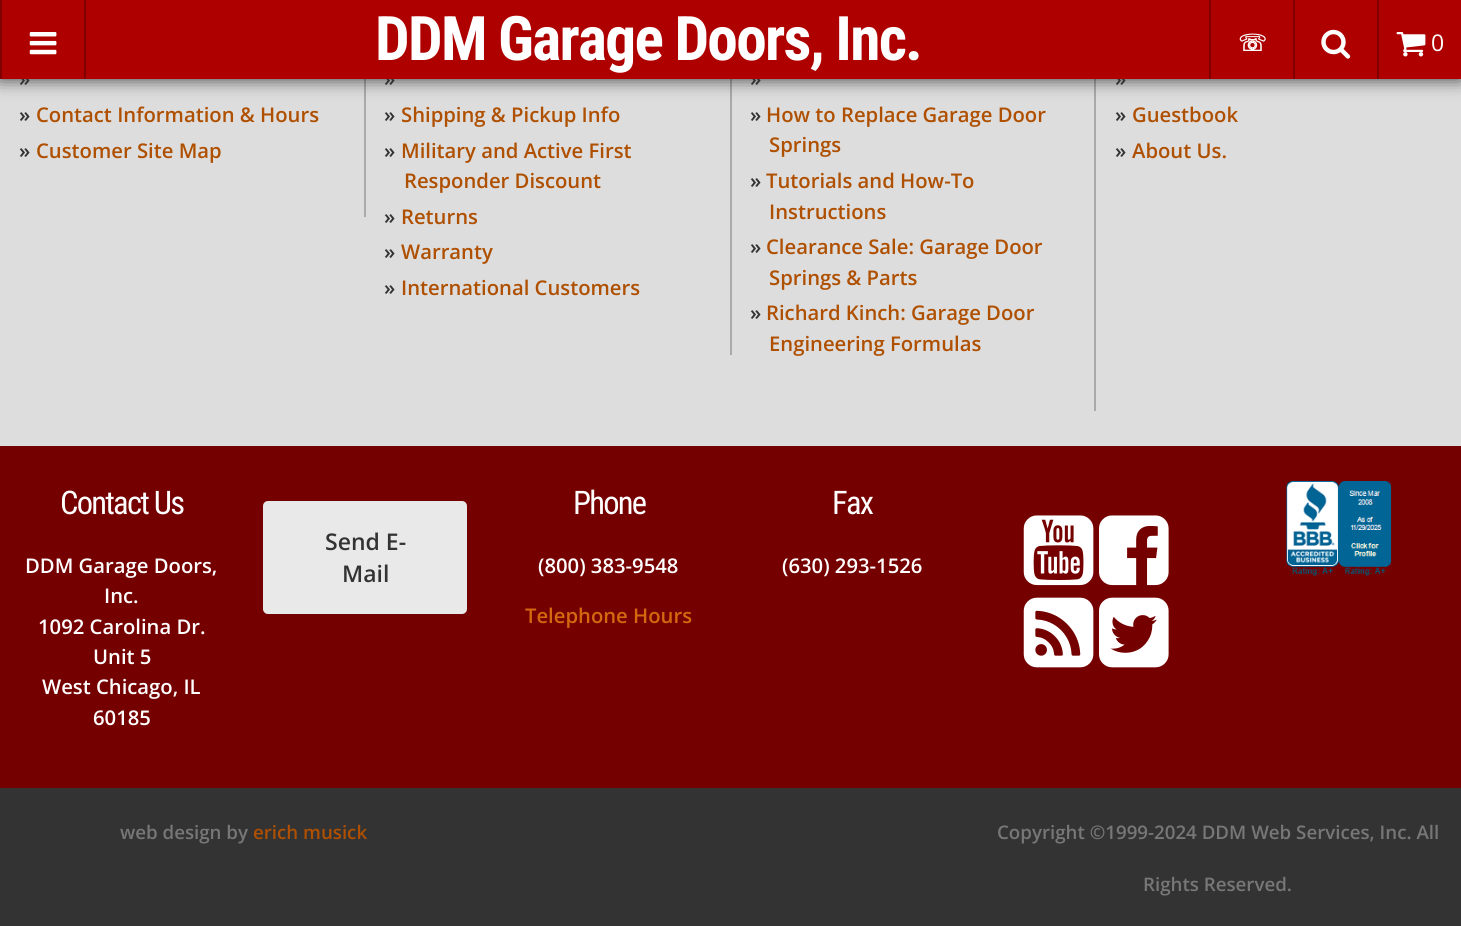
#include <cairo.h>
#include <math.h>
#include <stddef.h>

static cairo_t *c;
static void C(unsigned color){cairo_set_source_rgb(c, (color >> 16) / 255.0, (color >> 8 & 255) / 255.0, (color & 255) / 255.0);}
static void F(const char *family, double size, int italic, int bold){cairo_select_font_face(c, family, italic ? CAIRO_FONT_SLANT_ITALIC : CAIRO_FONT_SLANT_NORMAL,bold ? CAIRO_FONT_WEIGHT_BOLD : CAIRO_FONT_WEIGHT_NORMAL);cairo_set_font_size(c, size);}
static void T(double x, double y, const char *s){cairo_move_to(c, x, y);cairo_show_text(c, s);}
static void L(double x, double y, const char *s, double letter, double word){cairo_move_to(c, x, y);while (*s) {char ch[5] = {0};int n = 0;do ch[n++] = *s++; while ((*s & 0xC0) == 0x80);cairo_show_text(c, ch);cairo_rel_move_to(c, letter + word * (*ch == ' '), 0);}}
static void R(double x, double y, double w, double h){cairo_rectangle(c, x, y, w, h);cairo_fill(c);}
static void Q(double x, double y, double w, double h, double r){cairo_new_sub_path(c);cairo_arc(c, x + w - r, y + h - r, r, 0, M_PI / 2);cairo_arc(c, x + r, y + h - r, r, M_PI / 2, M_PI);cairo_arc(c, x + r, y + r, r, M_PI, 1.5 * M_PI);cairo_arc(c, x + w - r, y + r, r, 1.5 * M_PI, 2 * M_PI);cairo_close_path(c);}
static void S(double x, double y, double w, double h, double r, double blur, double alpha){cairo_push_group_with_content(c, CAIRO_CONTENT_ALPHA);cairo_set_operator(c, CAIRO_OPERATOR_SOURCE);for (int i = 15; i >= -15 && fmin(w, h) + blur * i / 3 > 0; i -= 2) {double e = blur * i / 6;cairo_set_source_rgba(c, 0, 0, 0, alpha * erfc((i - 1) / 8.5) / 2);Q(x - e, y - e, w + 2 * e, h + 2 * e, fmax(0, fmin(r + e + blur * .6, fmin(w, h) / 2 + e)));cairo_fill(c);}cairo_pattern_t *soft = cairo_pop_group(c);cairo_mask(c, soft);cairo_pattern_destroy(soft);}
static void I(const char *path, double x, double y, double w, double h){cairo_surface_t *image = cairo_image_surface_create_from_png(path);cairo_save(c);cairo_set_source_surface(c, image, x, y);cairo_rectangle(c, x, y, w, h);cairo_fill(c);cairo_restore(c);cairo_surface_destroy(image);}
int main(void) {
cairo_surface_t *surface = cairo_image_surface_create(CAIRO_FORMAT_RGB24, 1461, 926);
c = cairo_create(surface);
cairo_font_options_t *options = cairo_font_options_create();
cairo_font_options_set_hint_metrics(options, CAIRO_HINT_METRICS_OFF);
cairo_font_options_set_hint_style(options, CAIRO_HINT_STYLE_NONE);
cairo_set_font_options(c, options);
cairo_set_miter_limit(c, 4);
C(0xdddddd);
cairo_paint(c);
C(0xaaaaaa);
R(364,79,2,138);
R(730,79,2,276);
R(1094,79,2,332);
C(0x000000);
S(0,0,1461,79,0,9,.75);
F("Open Sans SemiBold",20.25,0,0);
C(0x333333);
T(19,86,"»");
T(384,86,"»");
T(750,86,"»");
T(1115,86,"»");
C(0xaf0000);
R(2,0,1459,79);
C(0x800000);
R(0,0,2,79);
I("1.png",29,32,28,23);
R(84,0,2,79);
F("Roboto Condensed",61.4,0,1);
C(0xffffff);
L(375,60,"DDM Garage Doors, Inc.",-1.75,0);
C(0x800000);
R(1209,0,2,79);
F("DejaVu Sans",23,0,1);
C(0xffffff);
T(1238,51,"☏");
C(0x800000);
R(1293,0,2,79);
I("2.png",1321,29,30,30);
R(1377,0,2,79);
I("3.png",1396,32,30,25);
F("Open Sans",23,0,0);
C(0xffffff);
T(1431,51,"0");
F("Open Sans SemiBold",20.25,0,0);
C(0x333333);
T(19,122,"»");
C(0xaf4f00);
T(36,122,"Contact Information & Hours");
C(0x333333);
T(19,158,"»");
C(0xaf4f00);
T(36,158,"Customer Site Map");
C(0x333333);
T(384,122,"»");
C(0xaf4f00);
T(401,122,"Shipping & Pickup Info");
C(0x333333);
T(384,158,"»");
C(0xaf4f00);
T(401,158,"Military and Active First");
T(404,188,"Responder Discount");
C(0x333333);
T(384,224,"»");
C(0xaf4f00);
T(401,224,"Returns");
C(0x333333);
T(384,259,"»");
C(0xaf4f00);
T(401,259,"Warranty");
C(0x333333);
T(384,295,"»");
C(0xaf4f00);
T(401,295,"International Customers");
C(0x333333);
T(750,122,"»");
C(0xaf4f00);
T(766,122,"How to Replace Garage Door");
T(769,152,"Springs");
C(0x333333);
T(750,188,"»");
C(0xaf4f00);
T(766,188,"Tutorials and How-To");
T(769,219,"Instructions");
C(0x333333);
T(750,254,"»");
C(0xaf4f00);
T(766,254,"Clearance Sale: Garage Door");
T(769,285,"Springs & Parts");
C(0x333333);
T(750,320,"»");
C(0xaf4f00);
T(766,320,"Richard Kinch: Garage Door");
T(769,351,"Engineering Formulas");
C(0x333333);
T(1115,122,"»");
C(0xaf4f00);
T(1132,122,"Guestbook");
C(0x333333);
T(1115,158,"»");
C(0xaf4f00);
T(1132,158,"About Us.");
C(0x750000);
R(0,446,1461,342);
F("Roboto Condensed",32.5,0,0);
C(0xffffff);
L(60,514,"Contact Us",-1.75,0);
F("Open Sans SemiBold",20.25,0,0);
T(25,573,"DDM Garage Doors,");
T(104,603,"Inc.");
T(38,634,"1092 Carolina Dr.");
T(93,664,"Unit 5");
T(42,694,"West Chicago, IL");
T(93,725,"60185");
C(0xe9e9e9);
Q(263,501,204,113,5);
cairo_fill(c);
F("Open Sans SemiBold",23,0,0);
C(0x333333);
T(325,550,"Send E-");
T(342,582,"Mail");
F("Roboto Condensed",32.5,0,0);
C(0xffffff);
L(573,514,"Phone",-1.75,0);
F("Open Sans SemiBold",20.25,0,0);
T(538,573,"(800) 383-9548");
C(0xd4680f);
T(525,623,"Telephone Hours");
F("Roboto Condensed",32.5,0,0);
C(0xffffff);
L(832,514,"Fax",-1.75,0);
F("Open Sans SemiBold",20.25,0,0);
T(782,573,"(630) 293-1526");
I("4.png",1023,515,71,71);
I("5.png",1099,515,70,71);
I("6.png",1023,597,71,71);
I("7.png",1099,597,70,71);
I("8.png",1286,481,106,95);
C(0x333333);
R(0,788,1461,138);
F("Open Sans SemiBold",18.7,0,0);
C(0x777777);
T(120,839,"web design by");
C(0xaf4f00);
T(253,839,"erich musick");
C(0x777777);
T(997,839,"Copyright ©1999-2024 DDM Web Services, Inc. All");
T(1143,891,"Rights Reserved.");
cairo_surface_write_to_png(surface, "o.png");
cairo_font_options_destroy(options);
cairo_destroy(c);
cairo_surface_destroy(surface);
return 0;
}
